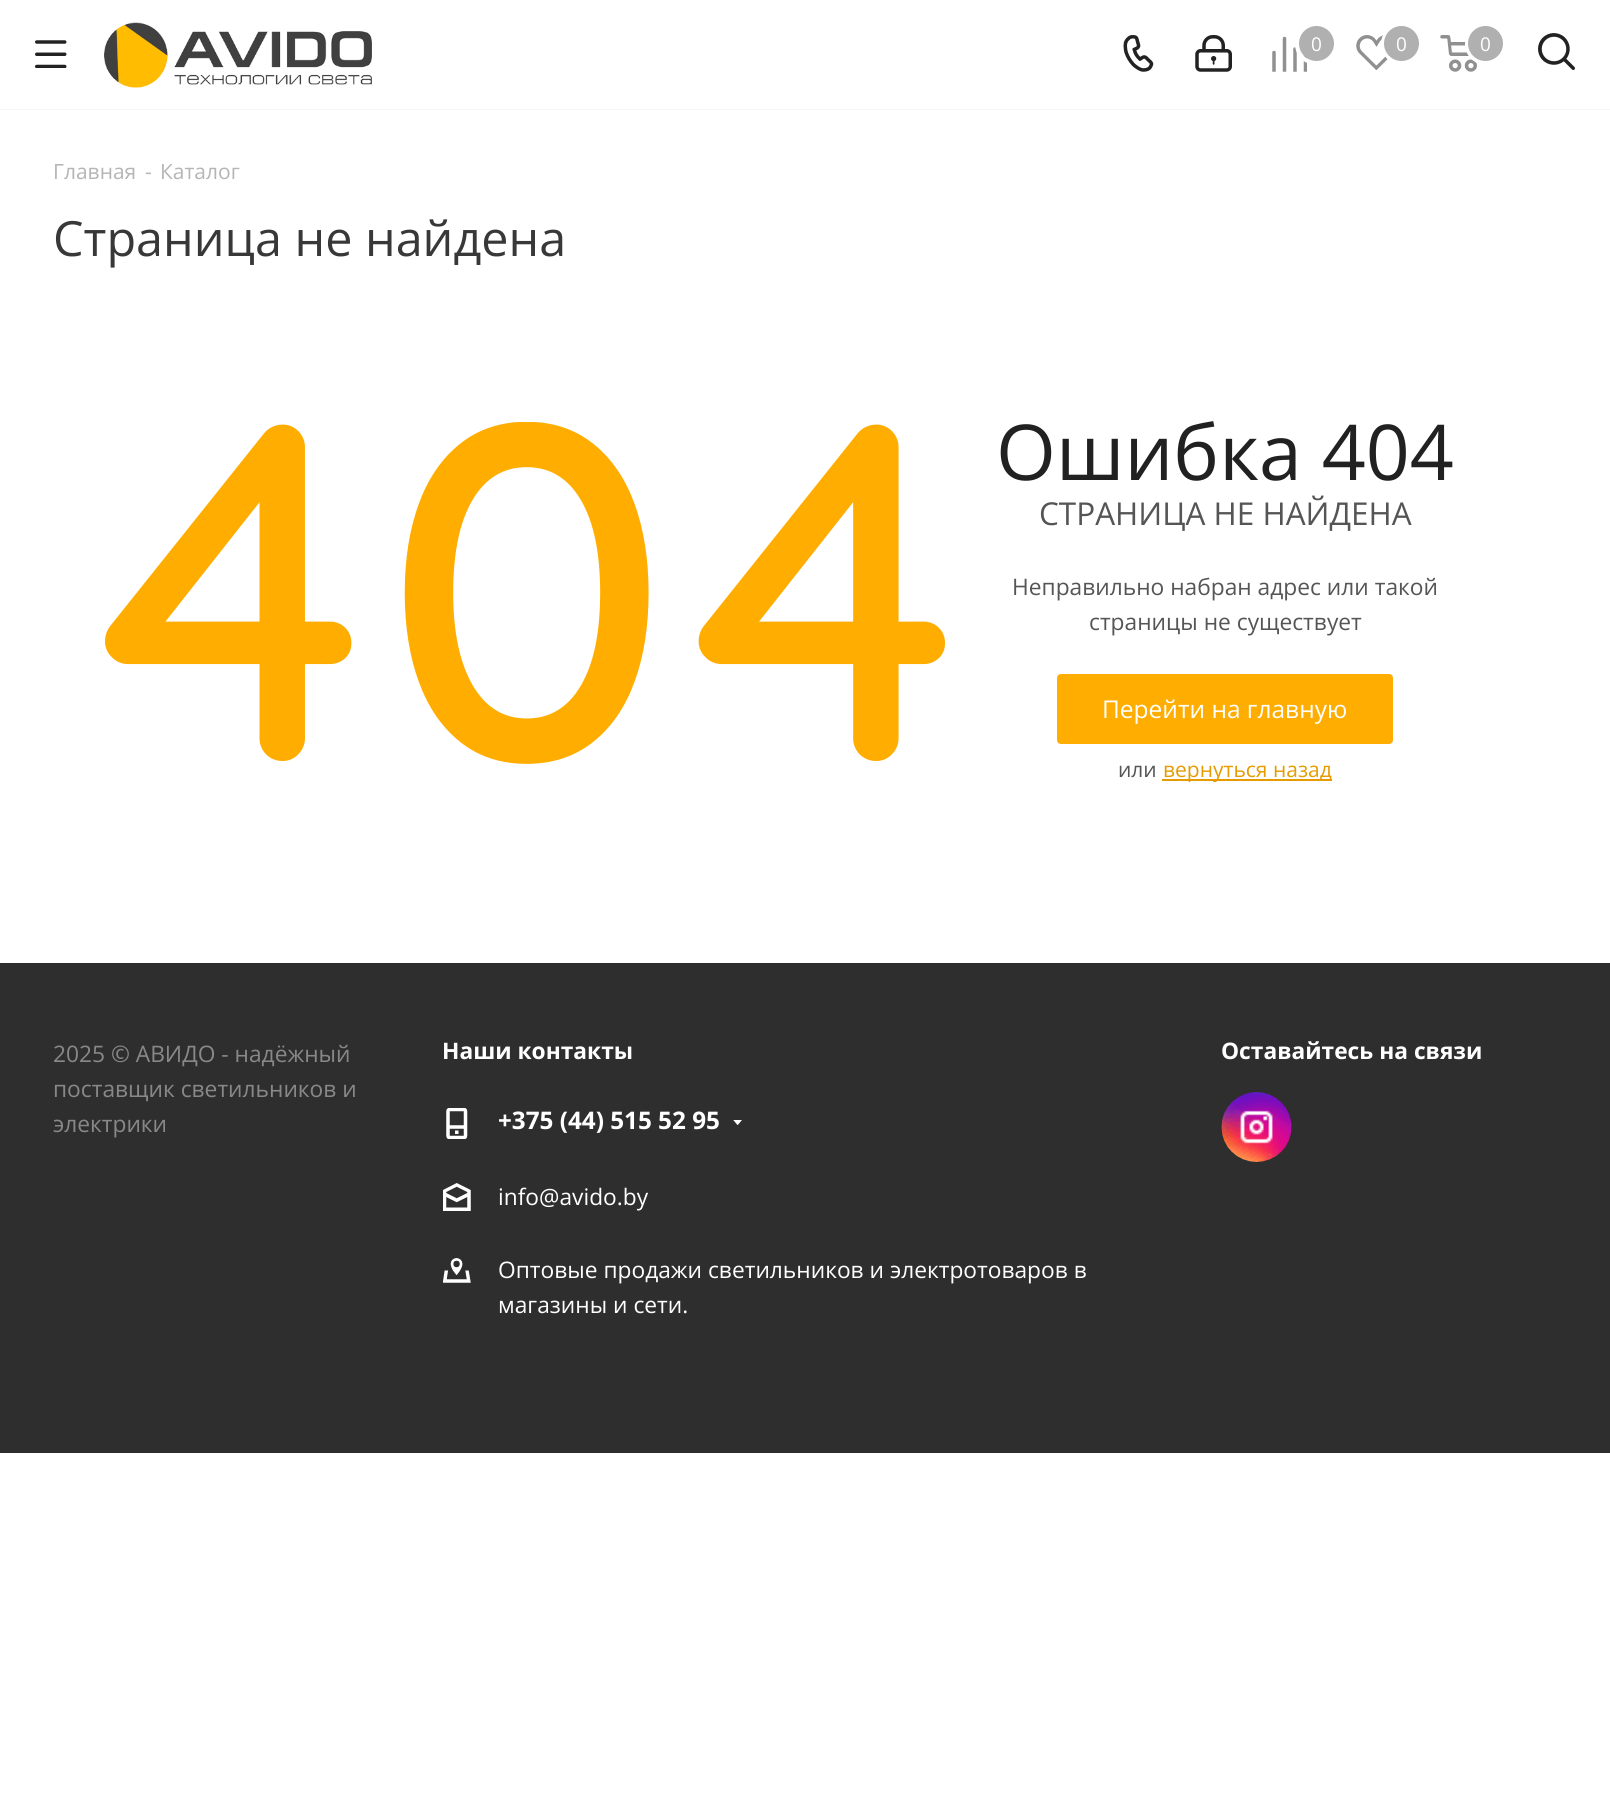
#include <cairo.h>
#include <math.h>
#include <stddef.h>

static cairo_t *c;
static void C(unsigned color){cairo_set_source_rgb(c, (color >> 16) / 255.0, (color >> 8 & 255) / 255.0, (color & 255) / 255.0);}
static void F(const char *family, double size, int italic, int bold){cairo_select_font_face(c, family, italic ? CAIRO_FONT_SLANT_ITALIC : CAIRO_FONT_SLANT_NORMAL,bold ? CAIRO_FONT_WEIGHT_BOLD : CAIRO_FONT_WEIGHT_NORMAL);cairo_set_font_size(c, size);}
static void T(double x, double y, const char *s){cairo_move_to(c, x, y);cairo_show_text(c, s);}
static void R(double x, double y, double w, double h){cairo_rectangle(c, x, y, w, h);cairo_fill(c);}
static void Q(double x, double y, double w, double h, double r){cairo_new_sub_path(c);cairo_arc(c, x + w - r, y + h - r, r, 0, M_PI / 2);cairo_arc(c, x + r, y + h - r, r, M_PI / 2, M_PI);cairo_arc(c, x + r, y + r, r, M_PI, 1.5 * M_PI);cairo_arc(c, x + w - r, y + r, r, 1.5 * M_PI, 2 * M_PI);cairo_close_path(c);}
static void I(const char *path, double x, double y, double w, double h){cairo_surface_t *image = cairo_image_surface_create_from_png(path);cairo_save(c);cairo_set_source_surface(c, image, x, y);cairo_rectangle(c, x, y, w, h);cairo_fill(c);cairo_restore(c);cairo_surface_destroy(image);}
int main(void) {
cairo_surface_t *surface = cairo_image_surface_create(CAIRO_FORMAT_RGB24, 1610, 1802);
c = cairo_create(surface);
cairo_font_options_t *options = cairo_font_options_create();
cairo_font_options_set_hint_metrics(options, CAIRO_HINT_METRICS_OFF);
cairo_font_options_set_hint_style(options, CAIRO_HINT_STYLE_NONE);
cairo_set_font_options(c, options);
cairo_set_miter_limit(c, 4);
C(0xffffff);
cairo_paint(c);
C(0xf5f5f5);
R(0,109,1610,1);
I("1.png",35,40,32,28);
I("2.png",104,22,268,66);
I("3.png",1123,35,31,37);
I("4.png",1195,35,37,37);
I("5.png",1272,36,35,36);
cairo_arc(c,1316,44,19,0,2 * M_PI);
C(0xffffff);
cairo_set_line_width(c,4);
cairo_stroke(c);
C(0xb0b0b0);
cairo_arc(c,1316.5,43.5,17.5,0,2 * M_PI);
cairo_fill(c);
F("Open Sans",19,0,0);
C(0xffffff);
T(1311,51,"0");
I("6.png",1356,35,35,35);
cairo_arc(c,1402,44,19,0,2 * M_PI);
cairo_stroke(c);
C(0xb0b0b0);
cairo_arc(c,1401.5,43.5,17.5,0,2 * M_PI);
cairo_fill(c);
C(0xffffff);
T(1396,51,"0");
I("7.png",1440,35,37,37);
cairo_arc(c,1486,44,19,0,2 * M_PI);
cairo_stroke(c);
C(0xb0b0b0);
cairo_arc(c,1485.5,43.5,17.5,0,2 * M_PI);
cairo_fill(c);
C(0xffffff);
T(1480,51,"0");
I("8.png",1538,33,37,37);
F("Open Sans",21,0,0);
C(0xb6b5b5);
T(53,179,"Главная");
T(145,179,"-");
T(160,179,"Каталог");
F("Open Sans",48.5,0,0);
C(0x383838);
T(53,256,"Страница не найдена");
I("9.png",105,422,840,342);
F("Open Sans",77,0,0);
C(0x212121);
T(996,480,"Ошибка 404");
F("Open Sans",31.5,0,0);
C(0x555555);
T(1039,525,"СТРАНИЦА НЕ НАЙДЕНА");
F("Open Sans",22.75,0,0);
T(1012,595,"Неправильно набран адрес или такой");
T(1089,630,"страницы не существует");
C(0xffad00);
Q(1058,675,334,68,3);
cairo_fill_preserve(c);
cairo_set_line_width(c,2);
cairo_stroke(c);
F("Open Sans",24.5,0,0);
C(0xffffff);
T(1102,718,"Перейти на главную");
F("Open Sans",21,0,0);
C(0x555555);
T(1118,777,"или");
C(0xe69c00);
R(1162,779,170,2);
T(1163,777,"вернуться назад");
C(0x2e2e2f);
R(0,963,1610,490);
F("Open Sans",22.75,0,0);
C(0x888888);
T(53,1062,"2025 © АВИДО - надёжный");
T(53,1097,"поставщик светильников и");
T(53,1132,"электрики");
F("Open Sans",22.75,0,1);
C(0xffffff);
T(442,1059,"Наши контакты");
I("10.png",446,1108,22,31);
F("Open Sans",24.25,0,1);
T(498,1129,"+375 (44) 515 52 95");
I("11.png",733,1120,9,5);
I("12.png",443,1183,28,28);
F("Open Sans",22.75,0,0);
T(498,1205,"info@avido.by");
I("13.png",443,1258,28,25);
T(498,1278,"Оптовые продажи светильников и электротоваров в");
T(498,1313,"магазины и сети.");
F("Open Sans",22.75,0,1);
T(1221,1059,"Оставайтесь на связи");
I("14.png",1221,1092,71,70);
cairo_surface_write_to_png(surface, "o.png");
cairo_font_options_destroy(options);
cairo_destroy(c);
cairo_surface_destroy(surface);
return 0;
}
